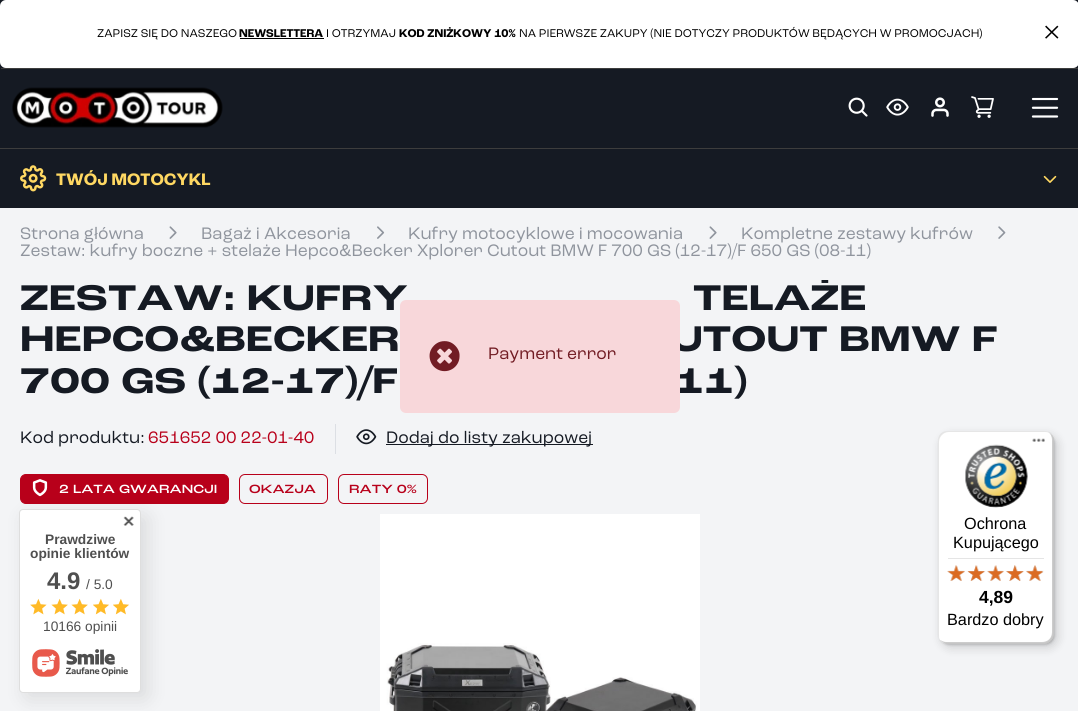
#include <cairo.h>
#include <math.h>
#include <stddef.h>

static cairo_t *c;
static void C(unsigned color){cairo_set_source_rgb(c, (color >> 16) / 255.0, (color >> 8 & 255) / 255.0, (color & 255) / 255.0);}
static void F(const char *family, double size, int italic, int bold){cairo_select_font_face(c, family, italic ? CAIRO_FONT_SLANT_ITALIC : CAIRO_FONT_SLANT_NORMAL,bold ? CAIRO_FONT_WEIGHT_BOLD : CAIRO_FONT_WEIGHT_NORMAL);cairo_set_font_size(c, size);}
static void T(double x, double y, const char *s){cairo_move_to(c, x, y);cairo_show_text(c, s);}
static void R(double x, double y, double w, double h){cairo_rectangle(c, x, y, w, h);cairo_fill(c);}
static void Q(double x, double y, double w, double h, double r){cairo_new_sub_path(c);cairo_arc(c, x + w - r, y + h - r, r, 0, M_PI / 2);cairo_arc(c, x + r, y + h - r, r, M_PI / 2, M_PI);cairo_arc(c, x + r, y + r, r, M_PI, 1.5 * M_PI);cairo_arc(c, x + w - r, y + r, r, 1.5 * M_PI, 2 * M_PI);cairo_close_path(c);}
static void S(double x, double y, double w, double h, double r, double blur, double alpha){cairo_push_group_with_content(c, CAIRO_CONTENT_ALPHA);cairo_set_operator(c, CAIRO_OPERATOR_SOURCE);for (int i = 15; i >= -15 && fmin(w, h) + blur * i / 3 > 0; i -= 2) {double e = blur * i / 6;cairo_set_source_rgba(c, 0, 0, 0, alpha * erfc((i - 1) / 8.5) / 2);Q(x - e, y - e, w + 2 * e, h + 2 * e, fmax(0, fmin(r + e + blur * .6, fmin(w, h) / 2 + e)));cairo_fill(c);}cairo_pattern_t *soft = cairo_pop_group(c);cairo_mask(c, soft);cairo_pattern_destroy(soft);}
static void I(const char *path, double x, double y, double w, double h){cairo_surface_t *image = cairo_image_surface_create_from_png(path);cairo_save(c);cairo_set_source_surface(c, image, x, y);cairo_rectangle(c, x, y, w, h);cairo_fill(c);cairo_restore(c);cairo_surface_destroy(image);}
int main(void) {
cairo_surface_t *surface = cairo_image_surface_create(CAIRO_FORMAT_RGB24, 1078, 711);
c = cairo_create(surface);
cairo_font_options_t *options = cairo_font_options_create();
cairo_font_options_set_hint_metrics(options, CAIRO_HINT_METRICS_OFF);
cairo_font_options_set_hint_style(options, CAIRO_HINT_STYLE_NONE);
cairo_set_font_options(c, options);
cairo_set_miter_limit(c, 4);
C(0xf3f4f6);
cairo_paint(c);
C(0x151a23);
R(0,0,1078,208);
C(0xffffff);
Q(0,0,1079,68,6);
cairo_fill(c);
F("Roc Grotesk",11.85,0,0);
C(0x000000);
T(97,37,"ZAPISZ SIĘ DO NASZEGO");
F("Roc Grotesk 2",11.85,0,1);
T(239,37,"NEWSLETTERA");
R(240,38,84,1);
F("Roc Grotesk",11.85,0,0);
T(326,37,"I OTRZYMAJ");
F("Roc Grotesk 2",11.85,0,1);
T(399,37,"KOD ZNIŻKOWY 10%");
F("Roc Grotesk",11.85,0,0);
T(519,37,"NA PIERWSZE ZAKUPY (NIE DOTYCZY PRODUKTÓW BĘDĄCYCH W PROMOCJACH)");
I("1.png",1045,25,14,14);
C(0x3d3d3d);
R(1,68,1077,1);
I("2.png",12,87,211,41);
I("3.png",848,97,20,20);
I("4.png",886,98,23,18);
I("5.png",931,97,18,20);
I("6.png",971,96,23,22);
I("7.png",1031,97,28,21);
R(0,148,1078,1);
I("8.png",20,165,27,27);
F("Roc Grotesk 2",17.5,0,1);
C(0xffd862);
T(56,185,"TWÓJ MOTOCYKL");
I("9.png",1043,175,14,8);
F("Roc Grotesk",17.5,0,0);
C(0x8f949d);
T(20,239,"Strona główna");
I("10.png",169,226,8,13);
T(201,239,"Bagaż i Akcesoria");
I("11.png",377,226,8,13);
T(408,239,"Kufry motocyklowe i mocowania");
I("10.png",709,226,8,13);
T(741,239,"Kompletne zestawy kufrów");
I("12.png",998,226,8,13);
T(20,256,"Zestaw: kufry boczne + stelaże Hepco&Becker Xplorer Cutout BMW F 700 GS (12-17)/F 650 GS (08-11)");
F("Roc Grotesk",37.5,0,1);
C(0x151a23);
T(20,310,"ZESTAW: KUFRY");
cairo_save(c);
cairo_rectangle(c,20,280,1039,124);
cairo_clip(c);
T(693,310,"TELAŻE");
cairo_restore(c);
T(20,351,"HEPCO&BECKER");
T(670,351,"UTOUT BMW F");
T(20,393,"700 GS (12-17)/F");
T(674,393,"11)");
F("Roc Grotesk",17.5,0,0);
T(20,443,"Kod produktu:");
C(0xb8001a);
T(148,443,"651652 00 22-01-40");
C(0xdcdfe4);
R(335,424,1,30);
I("13.png",356,429,21,16);
C(0x151a23);
R(386,444,207,1);
T(386,443,"Dodaj do listy zakupowej");
C(0xb8001a);
Q(20.5,474.5,208,29,5.5);
cairo_fill_preserve(c);
cairo_set_line_width(c,1);
cairo_stroke(c);
I("14.png",32,479,16,18);
F("Roc Grotesk Medium",12.5,0,0);
C(0xffffff);
T(59,493,"2 LATA GWARANCJI");
Q(239.5,474.5,88,29,5.5);
C(0xb8001a);
cairo_stroke(c);
T(249,493,"OKAZJA");
Q(338.5,474.5,89,29,5.5);
cairo_stroke(c);
T(349,493,"RATY 0%");
I("15.png",380,514,320,197);
C(0xf8d7da);
Q(400,300,280,113,6);
cairo_fill(c);
I("16.png",429,341,31,31);
F("Roc Grotesk",17.5,0,0);
C(0x721c24);
T(488,359,"Payment error");
C(0x000000);
S(25,515,123,184,4,9.5,.1);
C(0xffffff);
Q(19.5,509.5,121,183,3.5);
cairo_fill_preserve(c);
C(0xdedede);
cairo_stroke(c);
I("17.png",123,516,11,10);
F("Liberation Sans",13.75,0,1);
C(0x4f4f4f);
T(45,544,"Prawdziwe");
T(30,558,"opinie klientów");
F("Liberation Sans",24,0,1);
T(47,589,"4.9");
F("Liberation Sans",13.75,0,0);
T(86,589,"/ 5.0");
I("18.png",30,598,17,17);
I("19.png",51,598,17,17);
I("19.png",71,598,17,17);
I("20.png",93,598,16,17);
I("20.png",113,598,16,17);
T(43,631,"10166 opinii");
I("21.png",32,649,96,28);
C(0x000000);
S(941,435,117,213,10,5,.15);
S(939,433,116,212,10,1,.15);
C(0xffffff);
Q(938,431,116,213,10);
cairo_fill(c);
cairo_set_source_rgba(c,0,0,0,0.1);
cairo_new_path(c);
cairo_move_to(c,949,432);
cairo_line_to(c,1045,432);
cairo_curve_to(c,1048,432,1050,433,1052,434);
cairo_curve_to(c,1050,432,1047,431,1044,431);
cairo_line_to(c,948,431);
cairo_curve_to(c,942,431,938,435,938,441);
cairo_line_to(c,938,634);
cairo_curve_to(c,938,636,939,639,940,640);
cairo_curve_to(c,939,639,939,637,939,635);
cairo_line_to(c,939,442);
cairo_curve_to(c,939,437,943,432,949,432);
cairo_close_path(c);
cairo_fill(c);
cairo_set_source_rgba(c,0,0,0,0.2);
cairo_new_path(c);
cairo_move_to(c,940,640);
cairo_curve_to(c,942,642,945,644,948,644);
cairo_line_to(c,1044,644);
cairo_curve_to(c,1050,644,1054,640,1054,634);
cairo_line_to(c,1054,441);
cairo_curve_to(c,1054,437,1052,434,1048,432);
cairo_curve_to(c,1051,434,1052,437,1052,440);
cairo_line_to(c,1052,632);
cairo_curve_to(c,1052,638,1048,642,1042,642);
cairo_line_to(c,946,642);
cairo_curve_to(c,944,642,942,641,940,640);
cairo_close_path(c);
cairo_fill(c);
cairo_set_source_rgba(c,0.196,0.196,0.196,0.2);
cairo_new_path(c);
cairo_move_to(c,942,642);
cairo_curve_to(c,943,643,946,644,948,644);
cairo_line_to(c,1044,644);
cairo_curve_to(c,1050,644,1054,640,1054,634);
cairo_line_to(c,1054,441);
cairo_curve_to(c,1054,438,1053,435,1050,433);
cairo_curve_to(c,1052,435,1053,438,1053,440);
cairo_line_to(c,1053,633);
cairo_curve_to(c,1053,639,1049,643,1043,643);
cairo_line_to(c,947,643);
cairo_curve_to(c,945,643,943,643,942,642);
cairo_close_path(c);
cairo_fill(c);
cairo_set_source_rgba(c,1,1,1,0.3);
cairo_new_path(c);
cairo_move_to(c,942,642);
cairo_curve_to(c,943,643,946,644,948,644);
cairo_line_to(c,1044,644);
cairo_curve_to(c,1050,644,1054,640,1054,634);
cairo_line_to(c,1054,441);
cairo_curve_to(c,1054,435,1050,431,1044,431);
cairo_line_to(c,1043,431);
cairo_curve_to(c,1049,431,1053,435,1053,441);
cairo_line_to(c,1053,633);
cairo_curve_to(c,1053,639,1049,643,1043,643);
cairo_line_to(c,947,643);
cairo_curve_to(c,945,643,943,643,942,642);
cairo_close_path(c);
cairo_fill(c);
I("22.png",1032,438,13,4);
I("23.png",965,444,63,64);
F("Liberation Sans",16.25,0,0);
C(0x000000);
T(964,529,"Ochrona");
T(953,548,"Kupującego");
C(0xe5e5e5);
R(948,558,96,1);
I("24.png",947,565,18,16);
I("25.png",968,565,17,16);
I("26.png",987,565,17,16);
I("27.png",1006,565,18,16);
I("28.png",1026,565,18,16);
I("29.png",947,565,18,16);
I("30.png",967,565,19,16);
I("31.png",987,565,17,16);
I("32.png",1006,565,18,16);
I("33.png",1026,565,17,16);
F("Liberation Sans",17.5,0,1);
C(0x000000);
T(979,603,"4,89");
F("Liberation Sans",16.25,0,0);
T(947,625,"Bardzo dobry");
cairo_surface_write_to_png(surface, "o.png");
cairo_font_options_destroy(options);
cairo_destroy(c);
cairo_surface_destroy(surface);
return 0;
}
